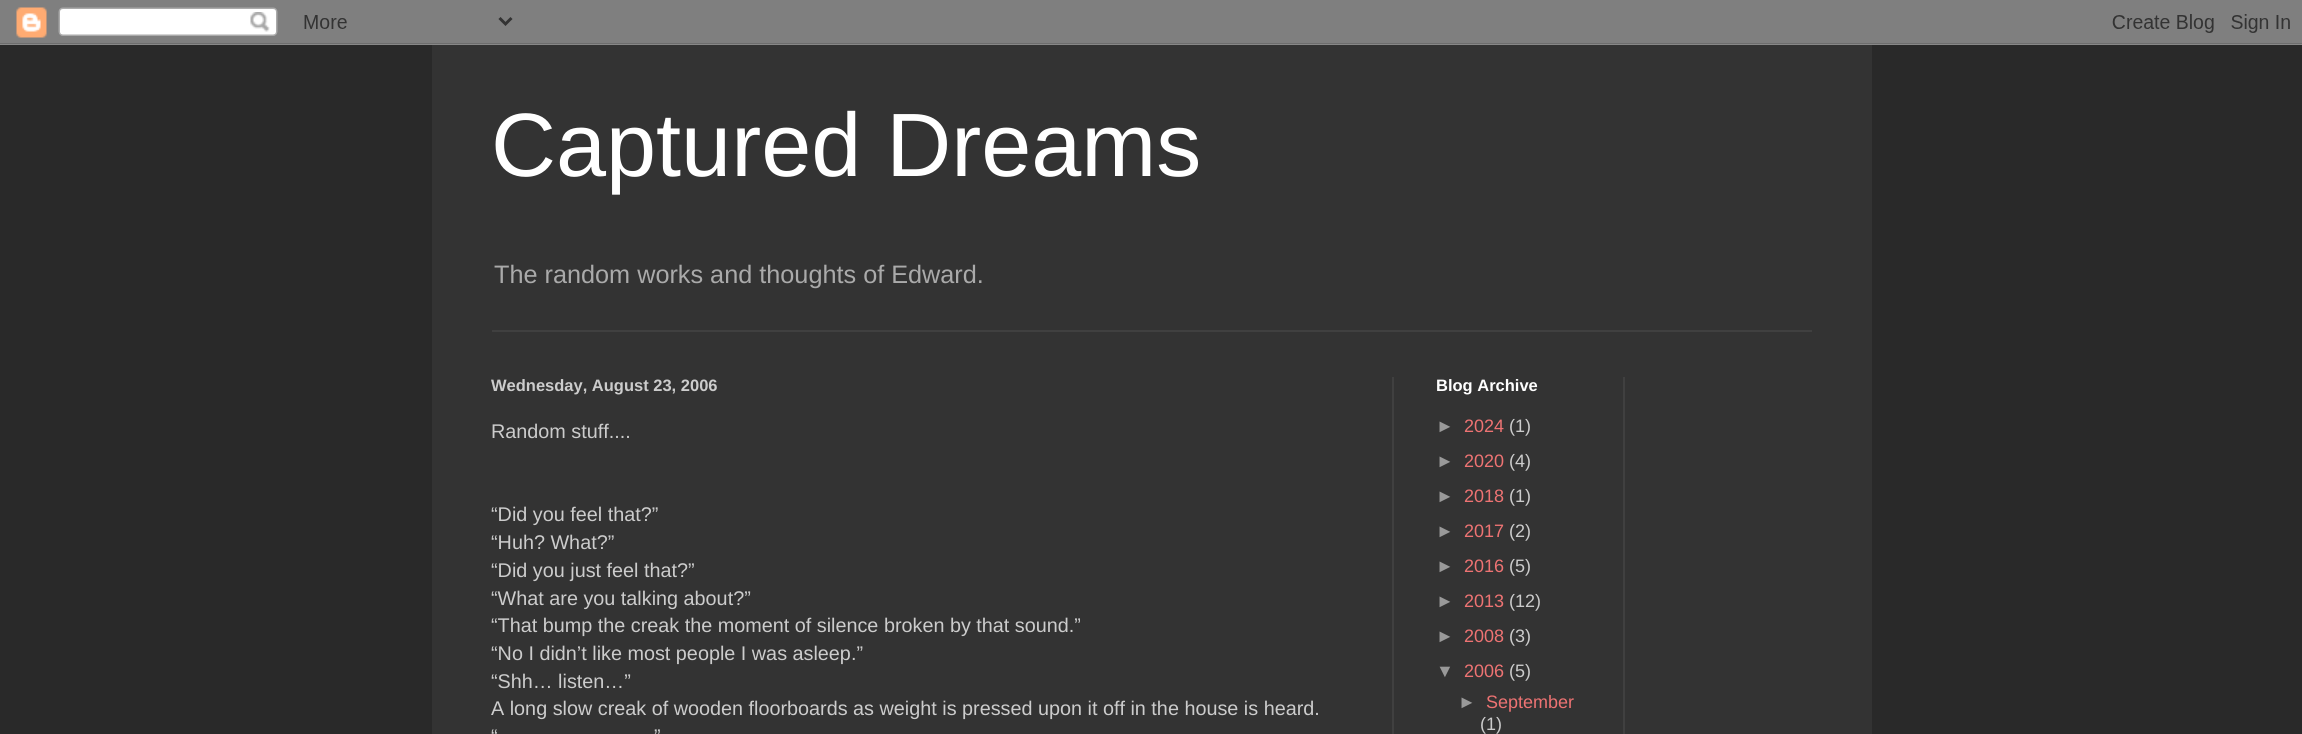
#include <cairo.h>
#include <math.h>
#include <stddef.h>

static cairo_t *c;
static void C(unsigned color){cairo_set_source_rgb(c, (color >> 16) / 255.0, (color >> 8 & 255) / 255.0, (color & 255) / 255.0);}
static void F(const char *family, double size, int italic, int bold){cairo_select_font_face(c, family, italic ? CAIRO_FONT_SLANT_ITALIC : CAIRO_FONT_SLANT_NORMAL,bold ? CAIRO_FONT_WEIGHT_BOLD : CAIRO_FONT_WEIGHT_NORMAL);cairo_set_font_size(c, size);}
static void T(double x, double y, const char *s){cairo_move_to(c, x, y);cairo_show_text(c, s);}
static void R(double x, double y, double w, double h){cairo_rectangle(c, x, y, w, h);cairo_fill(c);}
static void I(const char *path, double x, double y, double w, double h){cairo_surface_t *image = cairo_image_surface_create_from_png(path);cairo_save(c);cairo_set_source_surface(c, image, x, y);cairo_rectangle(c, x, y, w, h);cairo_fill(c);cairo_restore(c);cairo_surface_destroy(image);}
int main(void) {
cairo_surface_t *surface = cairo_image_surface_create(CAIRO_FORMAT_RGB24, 2302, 734);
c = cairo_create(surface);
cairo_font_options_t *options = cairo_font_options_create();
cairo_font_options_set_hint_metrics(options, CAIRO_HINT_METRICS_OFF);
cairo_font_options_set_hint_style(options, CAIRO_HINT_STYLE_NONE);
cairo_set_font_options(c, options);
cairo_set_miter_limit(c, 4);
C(0x292929);
cairo_paint(c);
I("1.png",0,0,2302,45);
C(0x333333);
R(432,45,1440,689);
F("Liberation Sans",90,0,0);
C(0xffffff);
T(491,176,"Captured Dreams");
F("Liberation Sans",25.25,0,0);
C(0xaaaaaa);
T(494,283,"The random works and thoughts of Edward.");
C(0x404040);
R(492,330,1320,2);
R(1392,377,2,357);
F("Liberation Sans",16.5,0,1);
C(0xcccccc);
T(491,391,"Wednesday, August 23, 2006");
F("Liberation Sans",19.8,0,0);
T(491,438,"Random stuff....");
T(491,521,"“Did you feel that?”");
T(491,549,"“Huh? What?”");
T(491,577,"“Did you just feel that?”");
T(491,605,"“What are you talking about?”");
T(491,632,"“That bump the creak the moment of silence broken by that sound.”");
T(491,660,"“No I didn’t like most people I was asleep.”");
T(491,688,"“Shh… listen…”");
T(491,715,"A long slow creak of wooden floorboards as weight is pressed upon it off in the house is heard.");
T(491,743,"“");
T(654,743,"”");
F("Liberation Sans",16.5,0,1);
C(0xffffff);
T(1436,391,"Blog Archive");
F("Liberation Sans",18,0,0);
C(0x999999);
T(1436,432,"►");
C(0xee7373);
T(1464,432,"2024");
C(0xcccccc);
T(1509,432,"(1)");
C(0x999999);
T(1436,467,"►");
C(0xee7373);
T(1464,467,"2020");
C(0xcccccc);
T(1509,467,"(4)");
C(0x999999);
T(1436,502,"►");
C(0xee7373);
T(1464,502,"2018");
C(0xcccccc);
T(1509,502,"(1)");
C(0x999999);
T(1436,537,"►");
C(0xee7373);
T(1464,537,"2017");
C(0xcccccc);
T(1509,537,"(2)");
C(0x999999);
T(1436,572,"►");
C(0xee7373);
T(1464,572,"2016");
C(0xcccccc);
T(1509,572,"(5)");
C(0x999999);
T(1436,607,"►");
C(0xee7373);
T(1464,607,"2013");
C(0xcccccc);
T(1509,607,"(12)");
C(0x999999);
T(1436,642,"►");
C(0xee7373);
T(1464,642,"2008");
C(0xcccccc);
T(1509,642,"(3)");
C(0x999999);
T(1436,677,"▼");
C(0xee7373);
T(1464,677,"2006");
C(0xcccccc);
T(1509,677,"(5)");
C(0x999999);
T(1458,708,"►");
C(0xee7373);
T(1486,708,"September");
C(0xcccccc);
T(1480,730,"(1)");
C(0x404040);
R(1623,377,2,357);
cairo_surface_write_to_png(surface, "o.png");
cairo_font_options_destroy(options);
cairo_destroy(c);
cairo_surface_destroy(surface);
return 0;
}
